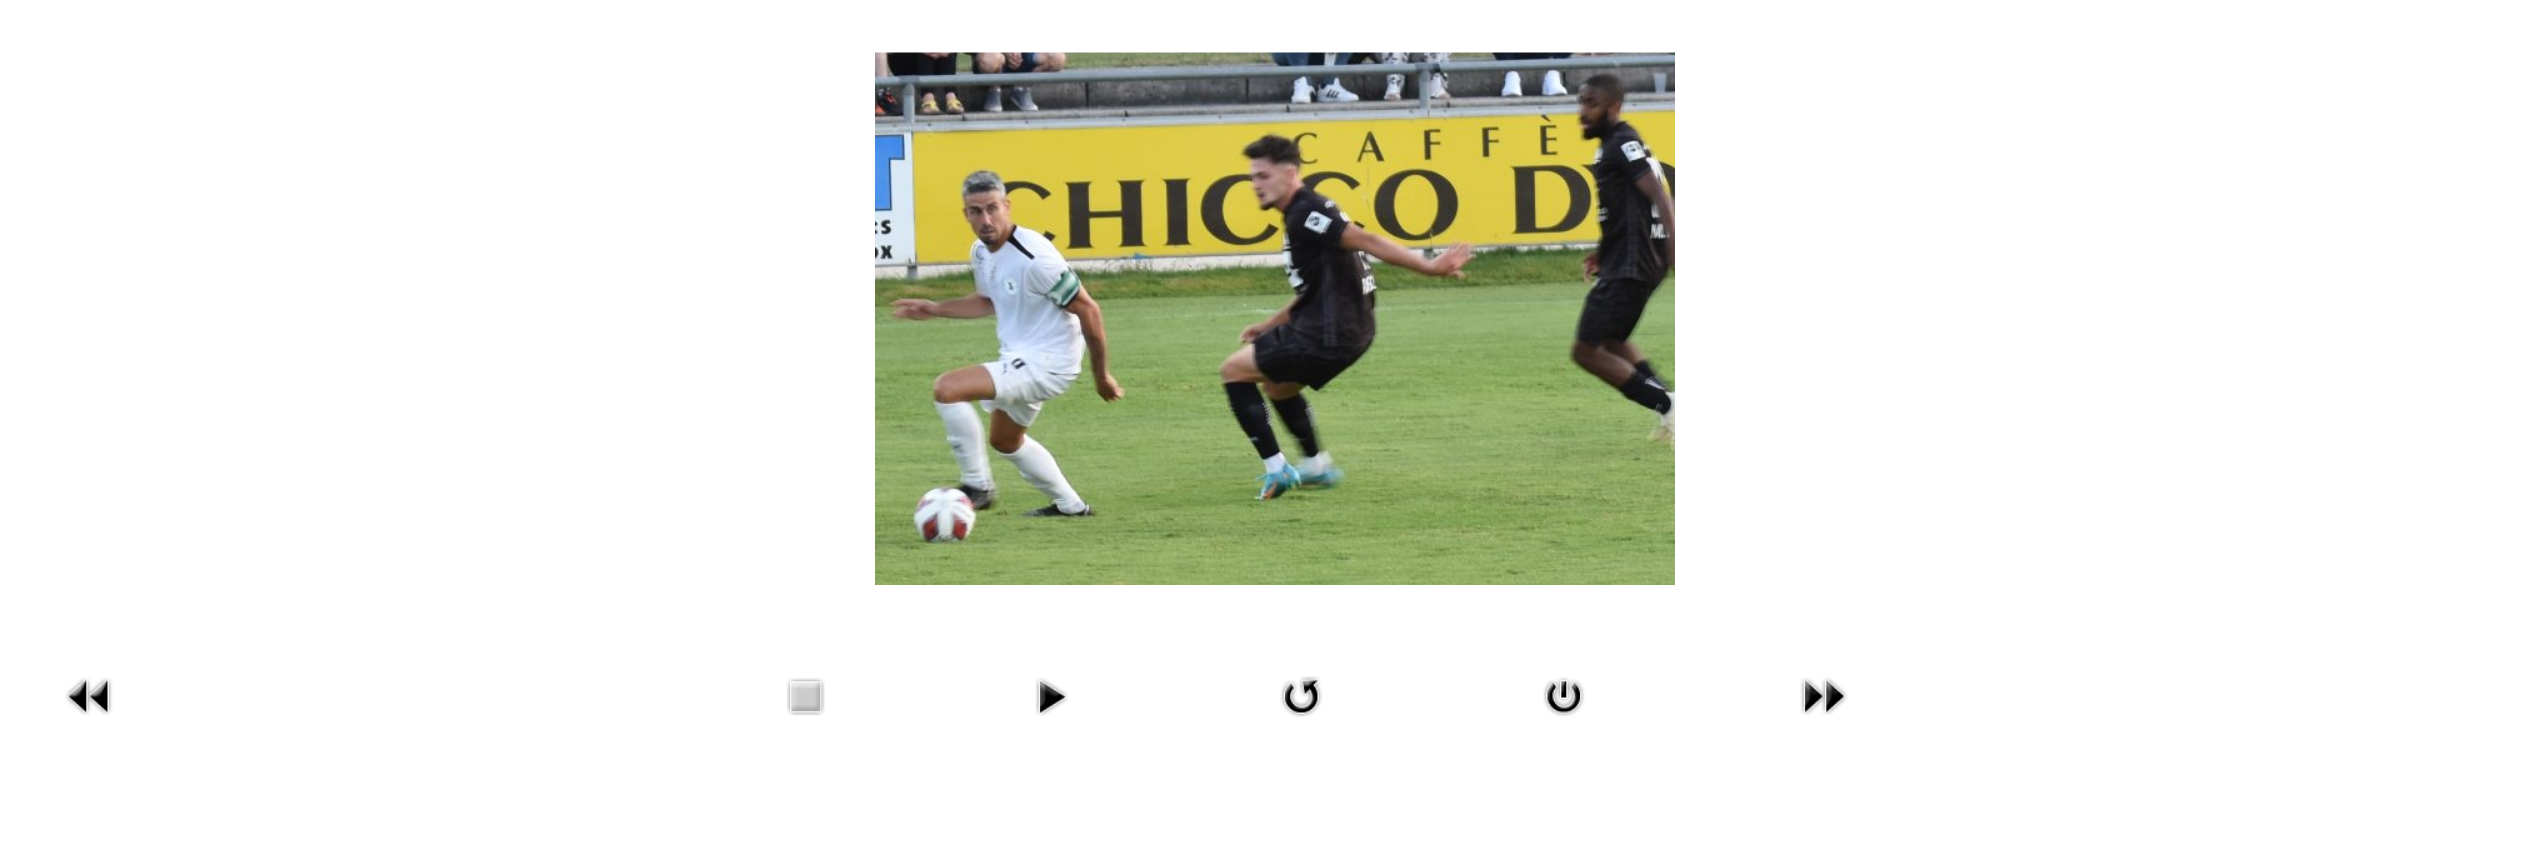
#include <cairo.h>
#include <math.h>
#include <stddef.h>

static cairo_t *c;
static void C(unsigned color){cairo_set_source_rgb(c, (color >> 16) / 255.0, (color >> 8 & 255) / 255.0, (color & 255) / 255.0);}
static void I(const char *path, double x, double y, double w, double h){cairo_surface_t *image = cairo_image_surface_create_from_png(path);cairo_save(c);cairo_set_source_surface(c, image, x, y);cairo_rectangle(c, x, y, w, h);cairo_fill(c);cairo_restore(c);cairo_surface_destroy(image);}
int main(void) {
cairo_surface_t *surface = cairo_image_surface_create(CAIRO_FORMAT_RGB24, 2548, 863);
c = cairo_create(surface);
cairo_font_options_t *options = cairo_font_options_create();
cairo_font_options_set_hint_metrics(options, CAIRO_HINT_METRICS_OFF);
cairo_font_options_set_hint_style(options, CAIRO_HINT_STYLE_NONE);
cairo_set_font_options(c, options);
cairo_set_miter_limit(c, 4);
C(0xffffff);
cairo_paint(c);
I("1.png",875,52,800,533);
I("2.png",65,677,48,39);
I("3.png",786,677,39,39);
I("4.png",1035,677,34,39);
I("5.png",1280,676,43,42);
I("6.png",1543,677,42,40);
I("7.png",1800,677,48,39);
cairo_surface_write_to_png(surface, "o.png");
cairo_font_options_destroy(options);
cairo_destroy(c);
cairo_surface_destroy(surface);
return 0;
}
